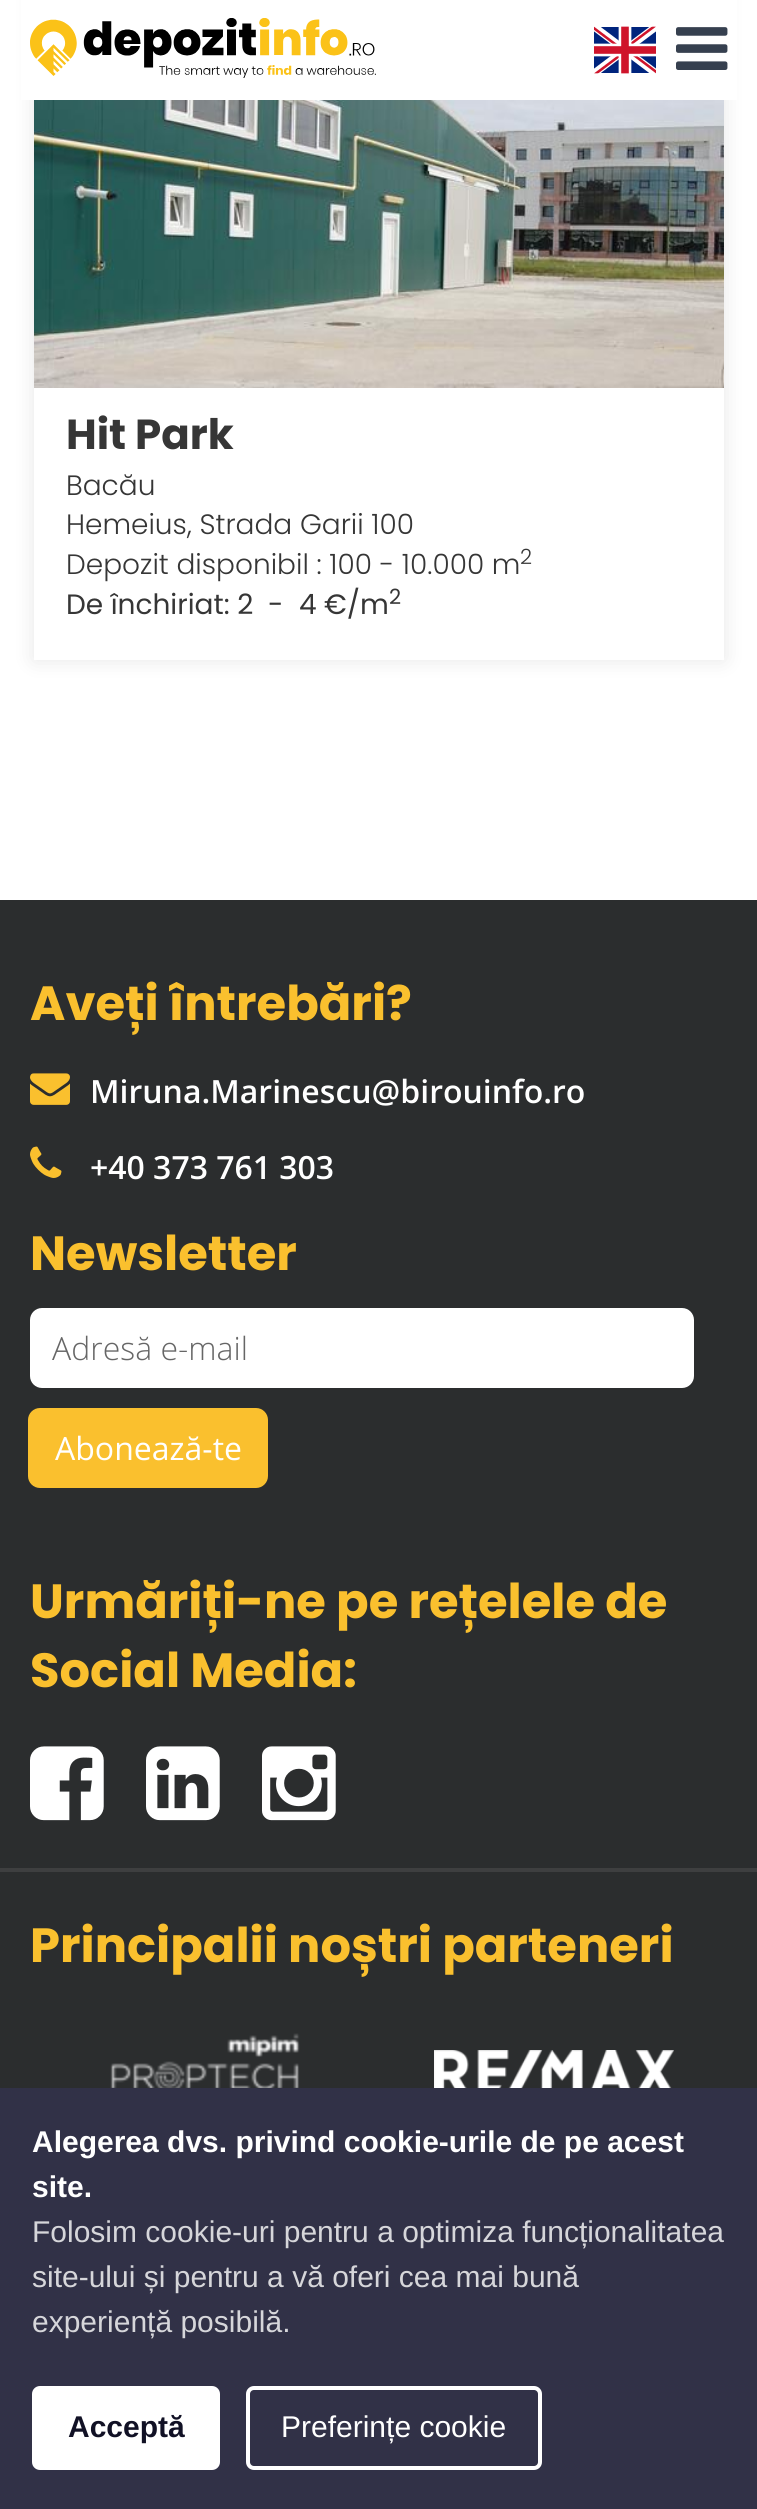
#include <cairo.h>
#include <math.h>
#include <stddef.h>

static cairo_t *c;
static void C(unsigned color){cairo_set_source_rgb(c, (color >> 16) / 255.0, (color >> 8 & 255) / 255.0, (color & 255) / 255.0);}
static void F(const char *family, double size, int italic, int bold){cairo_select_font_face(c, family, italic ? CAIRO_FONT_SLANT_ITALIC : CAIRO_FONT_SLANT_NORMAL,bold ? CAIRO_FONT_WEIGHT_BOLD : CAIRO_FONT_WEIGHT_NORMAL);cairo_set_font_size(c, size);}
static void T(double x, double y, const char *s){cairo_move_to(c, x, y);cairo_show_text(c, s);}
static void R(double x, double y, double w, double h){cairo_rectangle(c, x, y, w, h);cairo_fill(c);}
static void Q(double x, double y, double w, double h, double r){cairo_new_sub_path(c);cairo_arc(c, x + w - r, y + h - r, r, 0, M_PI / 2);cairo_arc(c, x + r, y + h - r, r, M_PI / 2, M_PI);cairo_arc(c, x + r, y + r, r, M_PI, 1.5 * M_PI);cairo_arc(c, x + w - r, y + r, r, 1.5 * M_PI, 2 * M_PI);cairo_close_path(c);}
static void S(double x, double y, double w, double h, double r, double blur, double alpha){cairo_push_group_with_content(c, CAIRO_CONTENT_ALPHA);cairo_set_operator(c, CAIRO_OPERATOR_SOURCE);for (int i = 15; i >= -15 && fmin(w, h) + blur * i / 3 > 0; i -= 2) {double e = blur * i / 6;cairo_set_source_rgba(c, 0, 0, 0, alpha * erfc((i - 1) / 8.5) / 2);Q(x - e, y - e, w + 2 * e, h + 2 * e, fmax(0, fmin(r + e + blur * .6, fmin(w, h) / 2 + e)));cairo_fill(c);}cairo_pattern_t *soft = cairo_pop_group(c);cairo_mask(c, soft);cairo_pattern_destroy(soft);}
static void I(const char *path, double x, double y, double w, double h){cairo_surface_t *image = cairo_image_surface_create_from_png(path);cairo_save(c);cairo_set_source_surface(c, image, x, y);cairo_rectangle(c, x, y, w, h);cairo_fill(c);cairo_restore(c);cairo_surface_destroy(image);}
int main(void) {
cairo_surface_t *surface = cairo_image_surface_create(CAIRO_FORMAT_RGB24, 757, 2509);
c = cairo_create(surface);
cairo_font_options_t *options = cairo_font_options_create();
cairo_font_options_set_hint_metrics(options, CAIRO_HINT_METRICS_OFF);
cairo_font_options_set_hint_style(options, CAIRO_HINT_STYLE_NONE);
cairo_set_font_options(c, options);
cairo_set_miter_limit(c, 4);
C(0xffffff);
cairo_paint(c);
cairo_save(c);
cairo_set_fill_rule(c,CAIRO_FILL_RULE_EVEN_ODD);
cairo_new_path(c);
cairo_move_to(c,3,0);
cairo_line_to(c,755,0);
cairo_line_to(c,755,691);
cairo_line_to(c,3,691);
cairo_close_path(c);
cairo_move_to(c,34,-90);
cairo_line_to(c,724,-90);
cairo_line_to(c,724,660);
cairo_line_to(c,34,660);
cairo_close_path(c);
cairo_clip(c);
C(0x000000);
S(34,-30,690,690,0,10,.1);
cairo_restore(c);
C(0xffffff);
R(21,0,716,100);
I("1.png",30,18,346,60);
I("2.png",594,26,62,48);
I("3.png",676,27,52,43);
I("4.png",34,100,690,288);
F("Poppins",42,0,1);
C(0x363636);
T(66,449,"Hit Park");
F("Poppins Light",28,0,0);
T(66,495,"Bacău");
T(66,534,"Hemeius, Strada Garii 100");
T(66,574,"Depozit disponibil : 100 - 10.000 m");
F("Poppins Light",21,0,0);
T(520,564,"2");
F("Poppins",28,0,0);
T(66,614,"De închiriat: 2");
T(268,614,"-");
T(299,614,"4 €/m");
F("Poppins",21,0,0);
T(389,604,"2");
C(0x2b2d2e);
R(0,900,757,1188);
C(0x3e3f40);
R(0,1868,757,4);
F("Poppins",48,0,1);
C(0xfac02e);
T(30,1020,"Aveți întrebări?");
I("5.png",30,1073,40,32);
F("Open Sans SemiBold",32,0,0);
C(0xffffff);
T(90,1103,"Miruna.Marinescu@birouinfo.ro");
I("6.png",30,1146,32,32);
T(90,1179,"+40 373 761 303");
F("Poppins",48,0,1);
C(0xfac02e);
T(30,1270,"Newsletter");
C(0xffffff);
Q(31,1309,662,78,11);
cairo_fill_preserve(c);
cairo_stroke(c);
F("Open Sans Light",32,0,0);
C(0x666666);
T(52,1360,"Adresă e-mail");
C(0xfac02e);
Q(29,1409,238,78,11);
cairo_fill_preserve(c);
cairo_stroke(c);
F("Open Sans",32,0,0);
C(0xffffff);
T(55,1460,"Abonează-te");
F("Poppins",48,0,1);
C(0xfac02e);
T(30,1618,"Urmăriți-ne pe rețelele de");
T(30,1687,"Social Media:");
I("7.png",30,1746,74,75);
I("8.png",146,1746,74,75);
I("9.png",262,1746,74,75);
T(30,1962,"Principalii noștri parteneri");
I("10.png",110,2033,190,55);
I("11.png",434,2050,240,38);
C(0x313147);
R(0,2088,757,421);
F("Liberation Sans",30,0,1);
C(0xffffff);
T(32,2152,"Alegerea dvs. privind cookie-urile de pe acest");
T(32,2197,"site.");
F("Liberation Sans",30,0,0);
C(0xd6d6da);
T(32,2242,"Folosim cookie-uri pentru a optimiza funcționalitatea");
T(32,2287,"site-ului și pentru a vă oferi cea mai bună");
T(32,2332,"experiență posibilă.");
C(0xffffff);
Q(34,2388,184,80,6);
cairo_fill_preserve(c);
cairo_set_line_width(c,4);
cairo_stroke(c);
F("Liberation Sans",30,0,1);
C(0x111125);
T(68,2437,"Acceptă");
Q(248,2388,292,80,6);
C(0xffffff);
cairo_stroke(c);
F("Liberation Sans",30,0,0);
T(281,2437,"Preferințe cookie");
cairo_surface_write_to_png(surface, "o.png");
cairo_font_options_destroy(options);
cairo_destroy(c);
cairo_surface_destroy(surface);
return 0;
}
